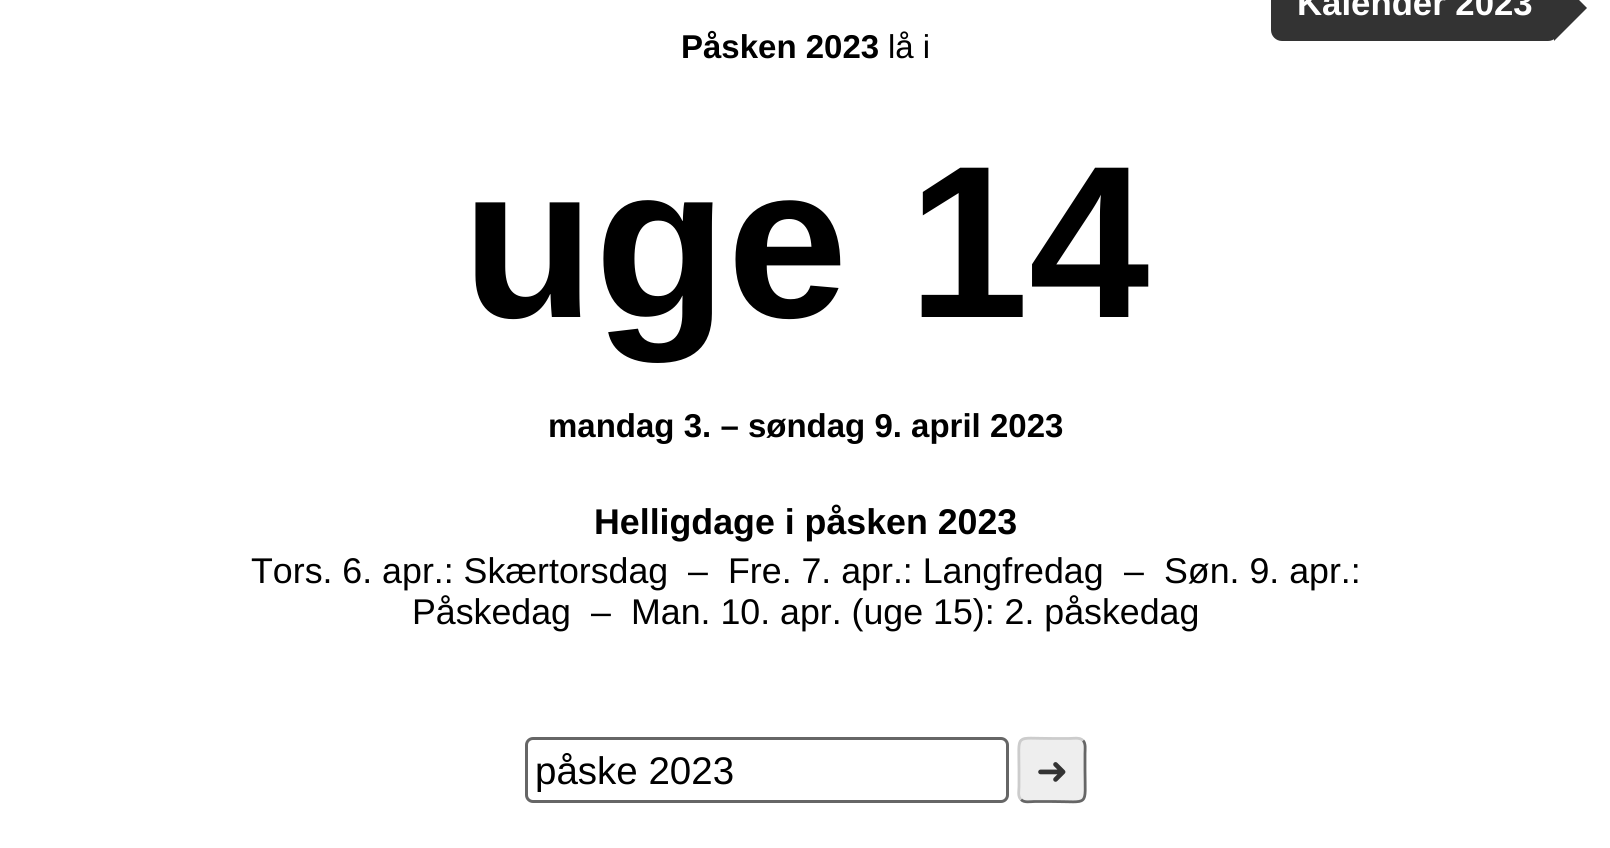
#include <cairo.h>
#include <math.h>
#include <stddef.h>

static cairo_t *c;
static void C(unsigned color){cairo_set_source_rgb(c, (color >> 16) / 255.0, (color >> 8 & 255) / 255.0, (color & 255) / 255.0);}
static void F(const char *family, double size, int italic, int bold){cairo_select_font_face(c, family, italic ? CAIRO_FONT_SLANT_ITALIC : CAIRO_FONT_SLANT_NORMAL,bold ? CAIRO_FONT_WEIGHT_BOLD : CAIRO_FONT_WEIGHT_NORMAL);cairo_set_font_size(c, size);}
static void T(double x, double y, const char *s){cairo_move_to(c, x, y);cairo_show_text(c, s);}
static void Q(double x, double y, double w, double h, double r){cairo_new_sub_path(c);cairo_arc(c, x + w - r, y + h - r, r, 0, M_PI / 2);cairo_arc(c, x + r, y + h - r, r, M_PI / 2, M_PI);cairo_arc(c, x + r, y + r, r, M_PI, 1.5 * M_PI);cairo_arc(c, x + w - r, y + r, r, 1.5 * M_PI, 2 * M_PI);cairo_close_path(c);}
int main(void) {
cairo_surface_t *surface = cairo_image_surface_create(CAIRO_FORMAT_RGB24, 1610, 848);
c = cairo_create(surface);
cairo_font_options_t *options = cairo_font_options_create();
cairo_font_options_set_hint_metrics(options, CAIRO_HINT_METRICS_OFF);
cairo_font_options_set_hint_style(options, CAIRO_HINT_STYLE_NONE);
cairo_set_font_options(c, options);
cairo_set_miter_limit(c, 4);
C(0xffffff);
cairo_paint(c);
C(0x333333);
Q(1271,-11,288,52,11);
cairo_fill(c);
F("Liberation Sans",34.75,0,1);
C(0xffffff);
T(1297,15,"Kalender 2023");
C(0x333333);
cairo_new_path(c);
cairo_move_to(c,1554,41);
cairo_line_to(c,1554,-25);
cairo_line_to(c,1587,8);
cairo_close_path(c);
cairo_fill(c);
F("Liberation Sans",33,0,1);
C(0x000000);
T(681,58,"Påsken 2023");
F("Liberation Sans",33,0,0);
T(888,58,"lå i");
F("Liberation Sans",217,0,1);
T(462,317,"uge 14");
F("Liberation Sans",33,0,1);
T(548,437,"mandag 3. – søndag 9. april 2023");
F("Liberation Sans",35.75,0,1);
T(594,534,"Helligdage i påsken 2023");
F("Liberation Sans",35.75,0,0);
T(251,583,"Tors. 6. apr.: Skærtorsdag");
T(688,583,"–");
T(728,583,"Fre. 7. apr.: Langfredag");
T(1124,583,"–");
T(1164,583,"Søn. 9. apr.:");
T(412,624,"Påskedag");
T(591,624,"–");
T(631,624,"Man. 10. apr. (uge 15): 2. påskedag");
Q(526.5,738.5,481,63,6.5);
C(0x666666);
cairo_set_line_width(c,3);
cairo_stroke(c);
F("Liberation Sans",38.5,0,0);
C(0x000000);
T(535,784,"påske 2023");
C(0xeeeeee);
Q(1018,737,68,66,8);
cairo_fill(c);
cairo_new_path(c);
cairo_move_to(c,1083,740.5);
cairo_curve_to(c,1086,743.5,1085,749.5,1085,753.5);
cairo_line_to(c,1085,770);
cairo_curve_to(c,1085,807.5,1090,801.5,1052,801.5);
cairo_line_to(c,1034.5,801.5);
cairo_curve_to(c,1030.5,801.5,1024,803,1021,799.5);
C(0x666666);
cairo_set_line_width(c,2.8);
cairo_stroke(c);
cairo_new_path(c);
cairo_move_to(c,1021,799.5);
cairo_curve_to(c,1017.5,796.5,1019,790.5,1019,786.5);
cairo_line_to(c,1019,770);
cairo_curve_to(c,1019,732.5,1014,738.5,1052,738.5);
cairo_line_to(c,1069.5,738.5);
cairo_curve_to(c,1073,738.5,1079.5,737,1083,740.5);
C(0xcccccc);
cairo_stroke(c);
F("DejaVu Sans",38.5,0,0);
C(0x333333);
T(1036,784,"➜");
cairo_surface_write_to_png(surface, "o.png");
cairo_font_options_destroy(options);
cairo_destroy(c);
cairo_surface_destroy(surface);
return 0;
}
